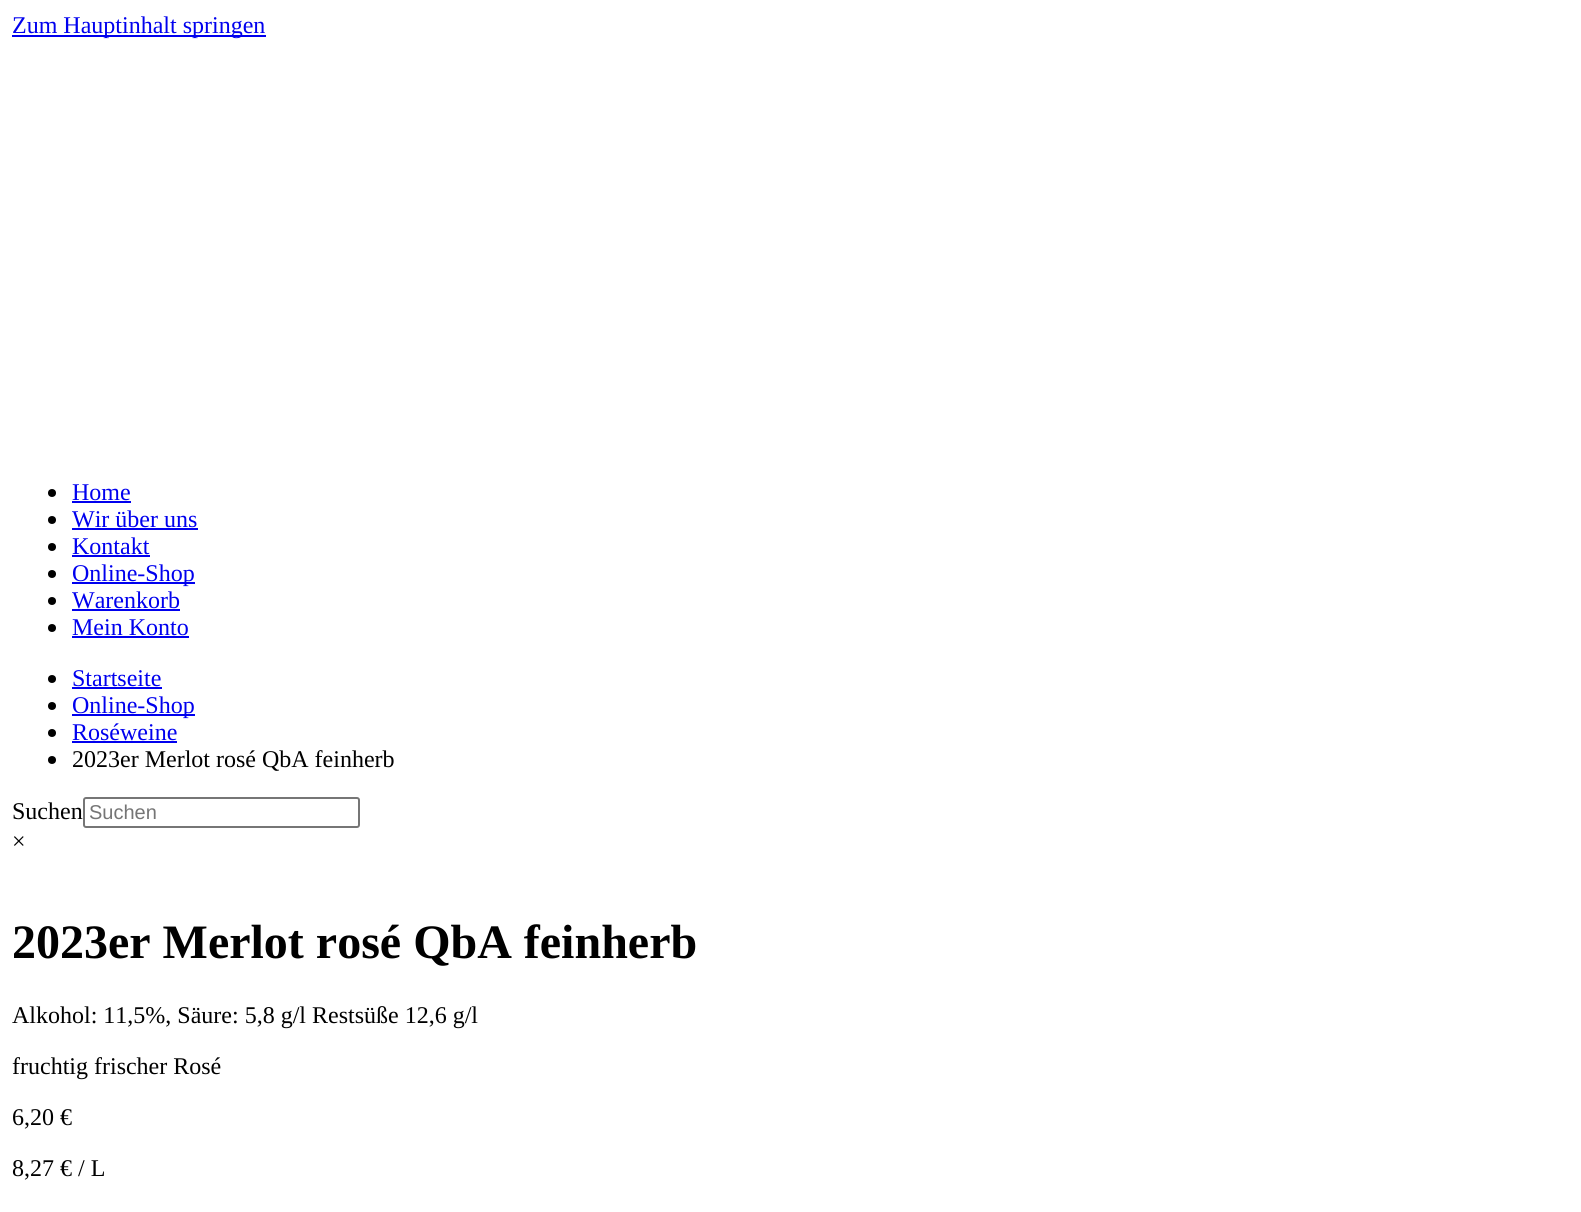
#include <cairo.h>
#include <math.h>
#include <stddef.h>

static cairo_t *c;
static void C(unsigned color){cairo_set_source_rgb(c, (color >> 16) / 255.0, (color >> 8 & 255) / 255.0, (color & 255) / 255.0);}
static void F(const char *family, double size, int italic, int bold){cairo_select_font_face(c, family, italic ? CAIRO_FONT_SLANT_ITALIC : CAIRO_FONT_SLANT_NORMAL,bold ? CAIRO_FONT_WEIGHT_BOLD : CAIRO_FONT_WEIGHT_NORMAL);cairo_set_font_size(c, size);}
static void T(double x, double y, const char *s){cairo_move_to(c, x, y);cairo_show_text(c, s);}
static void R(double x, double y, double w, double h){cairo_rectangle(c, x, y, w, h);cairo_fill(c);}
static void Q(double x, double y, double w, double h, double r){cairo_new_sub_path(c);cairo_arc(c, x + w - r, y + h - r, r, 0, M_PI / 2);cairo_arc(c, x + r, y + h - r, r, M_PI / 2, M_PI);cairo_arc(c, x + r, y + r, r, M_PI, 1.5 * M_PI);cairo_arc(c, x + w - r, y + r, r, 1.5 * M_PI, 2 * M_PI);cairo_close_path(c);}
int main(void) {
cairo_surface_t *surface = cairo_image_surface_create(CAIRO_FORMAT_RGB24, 1581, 1212);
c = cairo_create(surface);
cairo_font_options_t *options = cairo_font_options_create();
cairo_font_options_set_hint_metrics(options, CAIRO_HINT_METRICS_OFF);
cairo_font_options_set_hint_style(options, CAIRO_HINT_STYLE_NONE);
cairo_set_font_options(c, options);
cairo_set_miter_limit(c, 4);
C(0xffffff);
cairo_paint(c);
C(0x0000ee);
R(12,35,254,2);
F("Liberation Serif",24,0,0);
T(12,33,"Zum Hauptinhalt springen");
C(0x000000);
cairo_new_path(c);
cairo_arc(c,52,493,4,0,2 * M_PI);
cairo_fill(c);
C(0x0000ee);
T(72,500,"Home");
R(72,501,59,2);
C(0x000000);
cairo_new_path(c);
cairo_arc(c,52,520,4,0,2 * M_PI);
cairo_fill(c);
C(0x0000ee);
T(72,527,"Wir über uns");
R(72,528,126,2);
C(0x000000);
cairo_new_path(c);
cairo_arc(c,52,547,4,0,2 * M_PI);
cairo_fill(c);
C(0x0000ee);
T(72,554,"Kontakt");
R(72,555,78,2);
C(0x000000);
cairo_new_path(c);
cairo_arc(c,52,574,4,0,2 * M_PI);
cairo_fill(c);
C(0x0000ee);
R(72,582,123,2);
T(72,581,"Online-Shop");
C(0x000000);
cairo_new_path(c);
cairo_arc(c,52,601,4,0,2 * M_PI);
cairo_fill(c);
C(0x0000ee);
T(72,608,"Warenkorb");
R(72,609,108,2);
C(0x000000);
cairo_new_path(c);
cairo_arc(c,52,628,4,0,2 * M_PI);
cairo_fill(c);
C(0x0000ee);
T(72,635,"Mein Konto");
R(72,636,117,2);
C(0x000000);
cairo_new_path(c);
cairo_arc(c,52,679,4,0,2 * M_PI);
cairo_fill(c);
C(0x0000ee);
T(72,686,"Startseite");
R(72,687,90,2);
C(0x000000);
cairo_new_path(c);
cairo_arc(c,52,706,4,0,2 * M_PI);
cairo_fill(c);
C(0x0000ee);
R(72,714,123,2);
T(72,713,"Online-Shop");
C(0x000000);
cairo_new_path(c);
cairo_arc(c,52,733,4,0,2 * M_PI);
cairo_fill(c);
C(0x0000ee);
T(72,740,"Roséweine");
R(72,741,105,2);
C(0x000000);
cairo_new_path(c);
cairo_arc(c,52,760,4,0,2 * M_PI);
cairo_fill(c);
T(72,767,"2023er Merlot rosé QbA feinherb");
T(12,819,"Suchen");
Q(84,798,275,29,2);
C(0x767676);
cairo_stroke(c);
F("Liberation Sans",20,0,0);
C(0x757575);
T(89,819,"Suchen");
F("Liberation Serif",24,0,0);
C(0x000000);
T(12,849,"×");
F("Liberation Serif",48,0,1);
T(12,958,"2023er Merlot rosé QbA feinherb");
F("Liberation Serif",24,0,0);
T(12,1023,"Alkohol: 11,5%, Säure: 5,8 g/l Restsüße 12,6 g/l");
T(12,1074,"fruchtig frischer Rosé");
T(12,1125,"6,20 €");
T(12,1176,"8,27 € / L");
cairo_surface_write_to_png(surface, "o.png");
cairo_font_options_destroy(options);
cairo_destroy(c);
cairo_surface_destroy(surface);
return 0;
}
